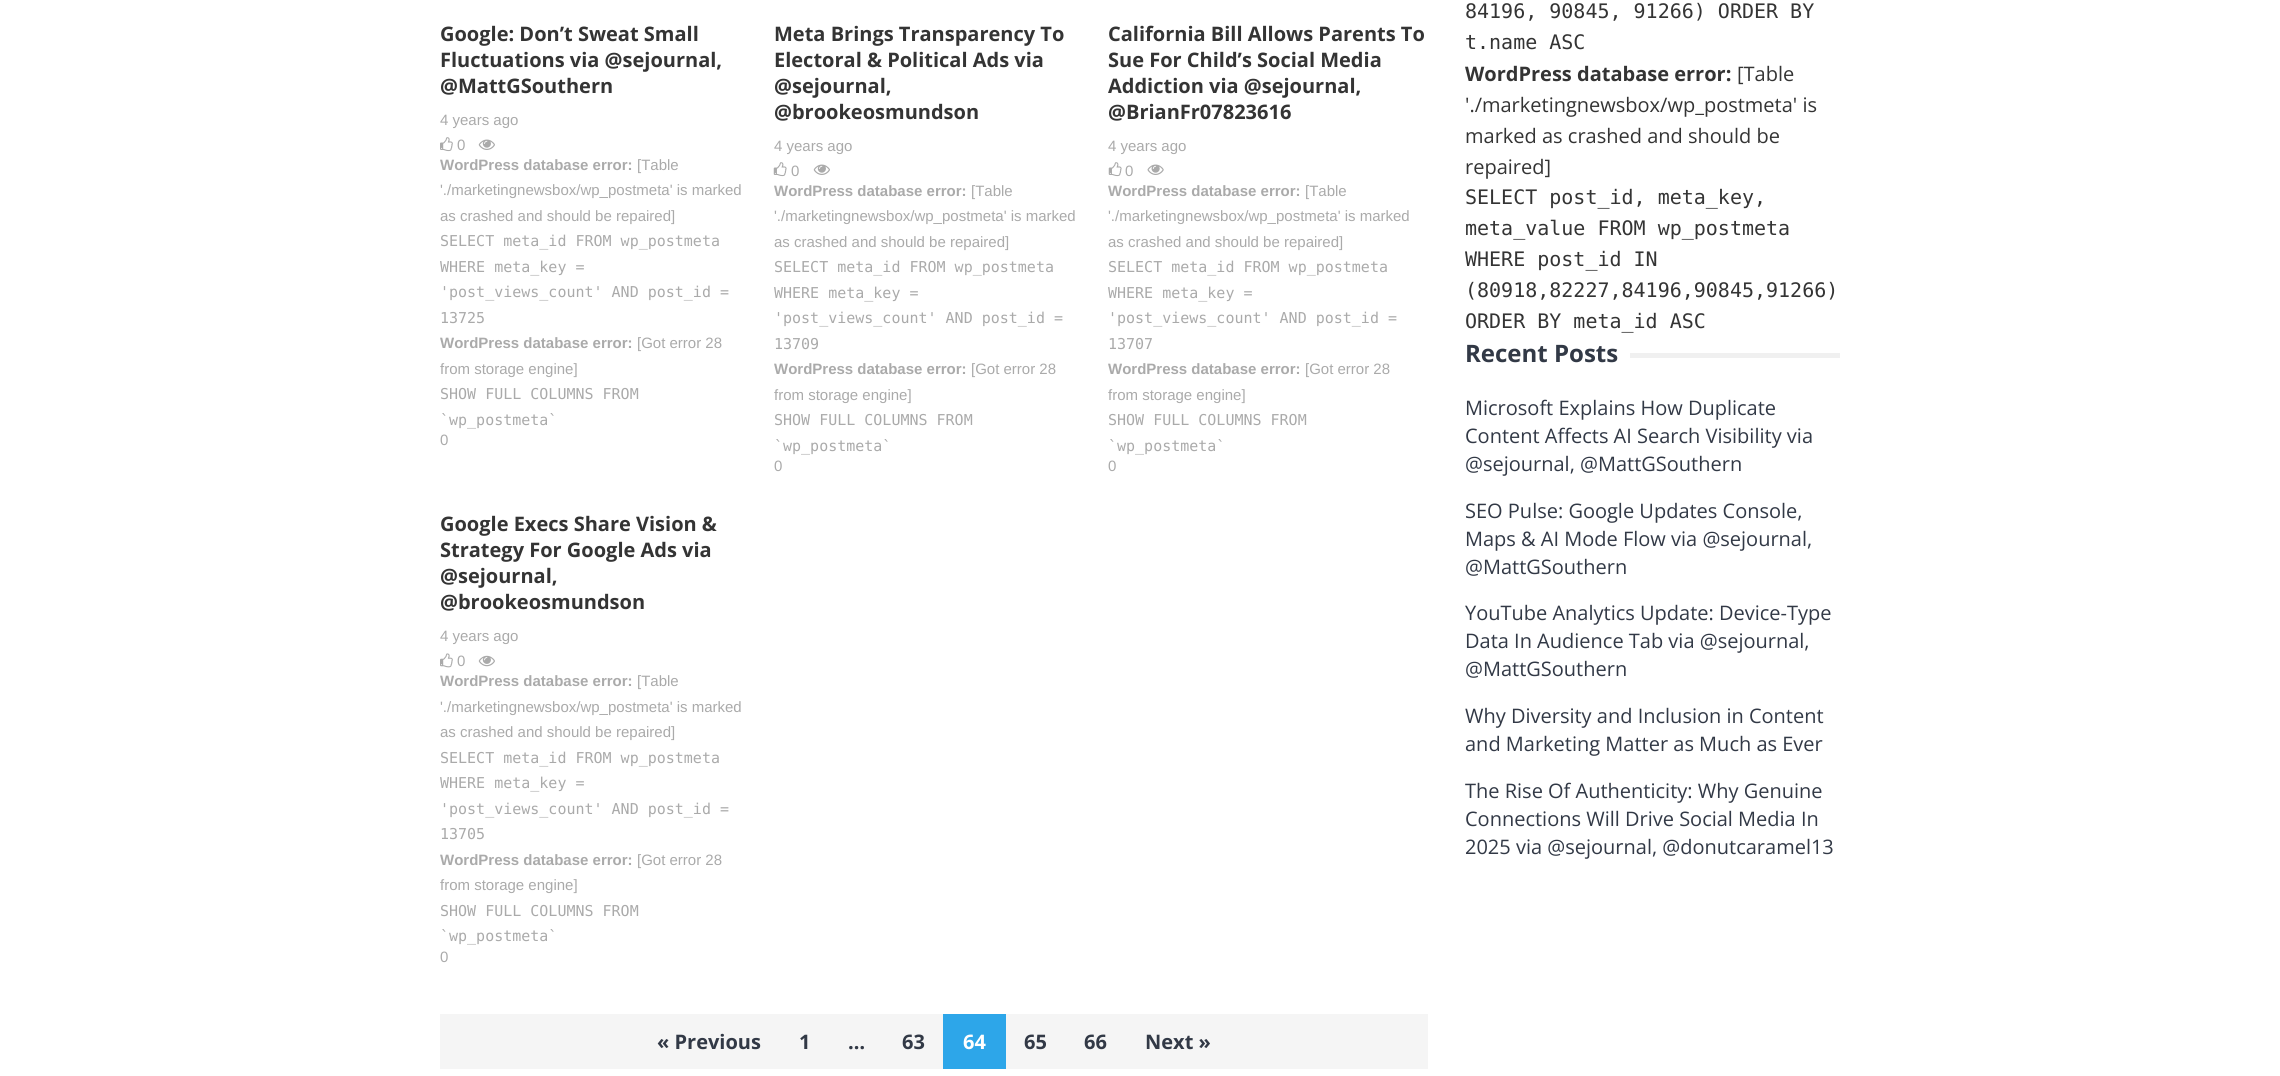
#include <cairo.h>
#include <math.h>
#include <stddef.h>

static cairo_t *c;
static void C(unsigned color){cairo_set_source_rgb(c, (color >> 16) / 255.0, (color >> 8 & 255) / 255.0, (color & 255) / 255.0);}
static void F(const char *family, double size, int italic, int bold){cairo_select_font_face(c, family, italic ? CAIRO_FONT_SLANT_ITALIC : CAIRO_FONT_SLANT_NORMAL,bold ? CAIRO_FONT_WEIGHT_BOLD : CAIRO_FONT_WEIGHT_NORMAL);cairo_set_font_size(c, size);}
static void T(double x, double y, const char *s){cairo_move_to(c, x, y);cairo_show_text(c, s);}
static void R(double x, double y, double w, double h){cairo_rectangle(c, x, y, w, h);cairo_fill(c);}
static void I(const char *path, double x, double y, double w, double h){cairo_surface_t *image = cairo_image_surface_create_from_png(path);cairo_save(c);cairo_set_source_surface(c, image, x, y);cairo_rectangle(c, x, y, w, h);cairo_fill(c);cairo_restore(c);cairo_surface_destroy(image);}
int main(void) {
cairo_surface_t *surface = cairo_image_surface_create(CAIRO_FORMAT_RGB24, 2280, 1076);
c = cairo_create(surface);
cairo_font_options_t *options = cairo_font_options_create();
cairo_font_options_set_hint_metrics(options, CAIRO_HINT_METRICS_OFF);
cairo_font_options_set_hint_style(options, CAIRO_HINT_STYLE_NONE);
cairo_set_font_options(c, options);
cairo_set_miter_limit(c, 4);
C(0xffffff);
cairo_paint(c);
F("Open Sans",20,0,1);
C(0x343434);
T(440,41,"Google: Don’t Sweat Small");
T(440,67,"Fluctuations via @sejournal,");
T(440,93,"@MattGSouthern");
F("Liberation Sans",15,0,0);
C(0xaaaaaa);
T(440,125,"4 years ago");
I("1.png",440,137,13,15);
T(457,150,"0");
I("2.png",478,139,17,11);
F("Liberation Sans",15,0,1);
T(440,170,"WordPress database error:");
F("Liberation Sans",15,0,0);
T(637,170,"[Table");
T(440,195,"'./marketingnewsbox/wp_postmeta' is marked");
T(440,221,"as crashed and should be repaired]");
F("DejaVu Sans Mono",15,0,0);
T(440,246,"SELECT meta_id FROM wp_postmeta");
T(440,272,"WHERE meta_key =");
T(440,297,"'post_views_count' AND post_id =");
T(440,323,"13725");
F("Liberation Sans",15,0,1);
T(440,348,"WordPress database error:");
F("Liberation Sans",15,0,0);
T(637,348,"[Got error 28");
T(440,374,"from storage engine]");
F("DejaVu Sans Mono",15,0,0);
T(440,399,"SHOW FULL COLUMNS FROM");
T(440,425,"`wp_postmeta`");
F("Liberation Sans",15,0,0);
T(440,445,"0");
F("Open Sans",20,0,1);
C(0x343434);
T(774,41,"Meta Brings Transparency To");
T(774,67,"Electoral & Political Ads via");
T(774,93,"@sejournal,");
T(774,119,"@brookeosmundson");
F("Liberation Sans",15,0,0);
C(0xaaaaaa);
T(774,151,"4 years ago");
I("3.png",773,162,14,15);
T(791,176,"0");
I("2.png",813,164,17,11);
F("Liberation Sans",15,0,1);
T(774,196,"WordPress database error:");
F("Liberation Sans",15,0,0);
T(971,196,"[Table");
T(774,221,"'./marketingnewsbox/wp_postmeta' is marked");
T(774,247,"as crashed and should be repaired]");
F("DejaVu Sans Mono",15,0,0);
T(774,272,"SELECT meta_id FROM wp_postmeta");
T(774,298,"WHERE meta_key =");
T(774,323,"'post_views_count' AND post_id =");
T(774,349,"13709");
F("Liberation Sans",15,0,1);
T(774,374,"WordPress database error:");
F("Liberation Sans",15,0,0);
T(971,374,"[Got error 28");
T(774,400,"from storage engine]");
F("DejaVu Sans Mono",15,0,0);
T(774,425,"SHOW FULL COLUMNS FROM");
T(774,451,"`wp_postmeta`");
F("Liberation Sans",15,0,0);
T(774,471,"0");
F("Open Sans",20,0,1);
C(0x343434);
T(1108,41,"California Bill Allows Parents To");
T(1108,67,"Sue For Child’s Social Media");
T(1108,93,"Addiction via @sejournal,");
T(1108,119,"@BrianFr07823616");
F("Liberation Sans",15,0,0);
C(0xaaaaaa);
T(1108,151,"4 years ago");
I("3.png",1108,162,14,15);
T(1125,176,"0");
I("4.png",1147,164,17,11);
F("Liberation Sans",15,0,1);
T(1108,196,"WordPress database error:");
F("Liberation Sans",15,0,0);
T(1305,196,"[Table");
T(1108,221,"'./marketingnewsbox/wp_postmeta' is marked");
T(1108,247,"as crashed and should be repaired]");
F("DejaVu Sans Mono",15,0,0);
T(1108,272,"SELECT meta_id FROM wp_postmeta");
T(1108,298,"WHERE meta_key =");
T(1108,323,"'post_views_count' AND post_id =");
T(1108,349,"13707");
F("Liberation Sans",15,0,1);
T(1108,374,"WordPress database error:");
F("Liberation Sans",15,0,0);
T(1305,374,"[Got error 28");
T(1108,400,"from storage engine]");
F("DejaVu Sans Mono",15,0,0);
T(1108,425,"SHOW FULL COLUMNS FROM");
T(1108,451,"`wp_postmeta`");
F("Liberation Sans",15,0,0);
T(1108,471,"0");
F("Open Sans",20,0,1);
C(0x343434);
T(440,531,"Google Execs Share Vision &");
T(440,557,"Strategy For Google Ads via");
T(440,583,"@sejournal,");
T(440,609,"@brookeosmundson");
F("Liberation Sans",15,0,0);
C(0xaaaaaa);
T(440,641,"4 years ago");
I("5.png",440,653,13,15);
T(457,666,"0");
I("6.png",478,655,17,12);
F("Liberation Sans",15,0,1);
T(440,686,"WordPress database error:");
F("Liberation Sans",15,0,0);
T(637,686,"[Table");
T(440,712,"'./marketingnewsbox/wp_postmeta' is marked");
T(440,737,"as crashed and should be repaired]");
F("DejaVu Sans Mono",15,0,0);
T(440,763,"SELECT meta_id FROM wp_postmeta");
T(440,788,"WHERE meta_key =");
T(440,814,"'post_views_count' AND post_id =");
T(440,839,"13705");
F("Liberation Sans",15,0,1);
T(440,865,"WordPress database error:");
F("Liberation Sans",15,0,0);
T(637,865,"[Got error 28");
T(440,890,"from storage engine]");
F("DejaVu Sans Mono",15,0,0);
T(440,916,"SHOW FULL COLUMNS FROM");
T(440,941,"`wp_postmeta`");
F("Liberation Sans",15,0,0);
T(440,962,"0");
C(0xf5f5f5);
R(440,1014,988,55);
F("Open Sans",20,0,1);
C(0x323946);
T(657,1049,"« Previous");
T(799,1049,"1");
T(848,1049,"…");
T(902,1049,"63");
C(0x2da6e9);
R(943,1014,63,55);
C(0xffffff);
T(963,1049,"64");
C(0x323946);
T(1024,1049,"65");
T(1084,1049,"66");
T(1145,1049,"Next »");
F("DejaVu Sans Mono",20,0,0);
C(0x343434);
T(1465,18,"84196, 90845, 91266) ORDER BY");
T(1465,49,"t.name ASC");
F("Open Sans",20,0,1);
T(1465,81,"WordPress database error:");
F("Open Sans",20,0,0);
T(1737,81,"[Table");
T(1465,112,"'./marketingnewsbox/wp_postmeta' is");
T(1465,143,"marked as crashed and should be");
T(1465,174,"repaired]");
F("DejaVu Sans Mono",20,0,0);
T(1465,204,"SELECT post_id, meta_key,");
T(1465,235,"meta_value FROM wp_postmeta");
T(1465,266,"WHERE post_id IN");
T(1465,297,"(80918,82227,84196,90845,91266)");
T(1465,328,"ORDER BY meta_id ASC");
F("Open Sans",24,0,1);
C(0x323946);
T(1465,362,"Recent Posts");
C(0xf0f0f0);
R(1630,353,210,5);
F("Open Sans",20,0,0);
C(0x323946);
T(1465,415,"Microsoft Explains How Duplicate");
T(1465,443,"Content Affects AI Search Visibility via");
T(1465,471,"@sejournal, @MattGSouthern");
T(1465,518,"SEO Pulse: Google Updates Console,");
T(1465,546,"Maps & AI Mode Flow via @sejournal,");
T(1465,574,"@MattGSouthern");
T(1465,620,"YouTube Analytics Update: Device-Type");
T(1465,648,"Data In Audience Tab via @sejournal,");
T(1465,676,"@MattGSouthern");
T(1465,723,"Why Diversity and Inclusion in Content");
T(1465,751,"and Marketing Matter as Much as Ever");
T(1465,798,"The Rise Of Authenticity: Why Genuine");
T(1465,826,"Connections Will Drive Social Media In");
T(1465,854,"2025 via @sejournal, @donutcaramel13");
cairo_surface_write_to_png(surface, "o.png");
cairo_font_options_destroy(options);
cairo_destroy(c);
cairo_surface_destroy(surface);
return 0;
}
